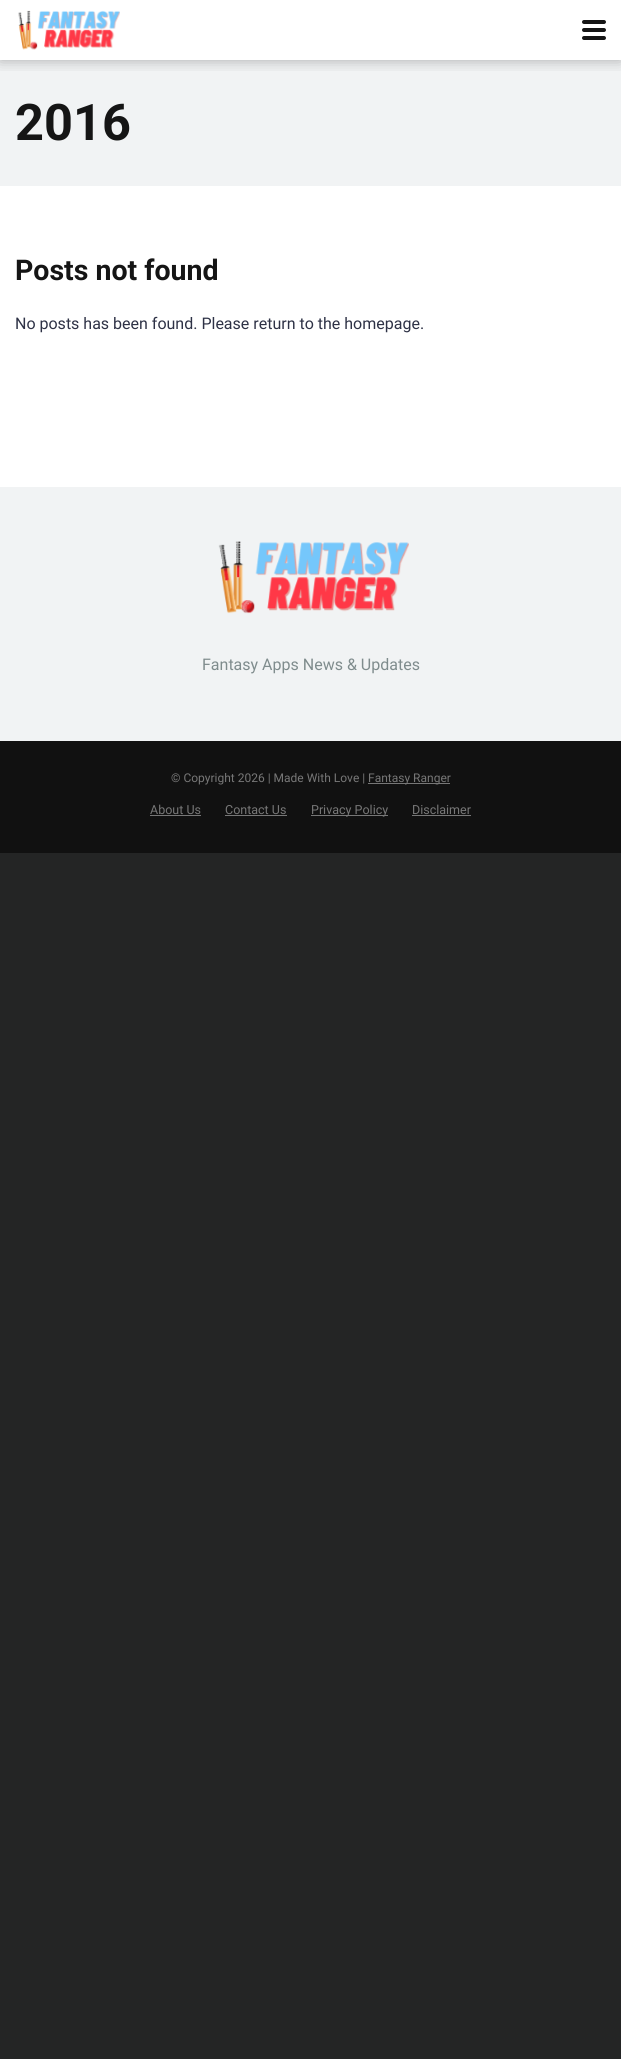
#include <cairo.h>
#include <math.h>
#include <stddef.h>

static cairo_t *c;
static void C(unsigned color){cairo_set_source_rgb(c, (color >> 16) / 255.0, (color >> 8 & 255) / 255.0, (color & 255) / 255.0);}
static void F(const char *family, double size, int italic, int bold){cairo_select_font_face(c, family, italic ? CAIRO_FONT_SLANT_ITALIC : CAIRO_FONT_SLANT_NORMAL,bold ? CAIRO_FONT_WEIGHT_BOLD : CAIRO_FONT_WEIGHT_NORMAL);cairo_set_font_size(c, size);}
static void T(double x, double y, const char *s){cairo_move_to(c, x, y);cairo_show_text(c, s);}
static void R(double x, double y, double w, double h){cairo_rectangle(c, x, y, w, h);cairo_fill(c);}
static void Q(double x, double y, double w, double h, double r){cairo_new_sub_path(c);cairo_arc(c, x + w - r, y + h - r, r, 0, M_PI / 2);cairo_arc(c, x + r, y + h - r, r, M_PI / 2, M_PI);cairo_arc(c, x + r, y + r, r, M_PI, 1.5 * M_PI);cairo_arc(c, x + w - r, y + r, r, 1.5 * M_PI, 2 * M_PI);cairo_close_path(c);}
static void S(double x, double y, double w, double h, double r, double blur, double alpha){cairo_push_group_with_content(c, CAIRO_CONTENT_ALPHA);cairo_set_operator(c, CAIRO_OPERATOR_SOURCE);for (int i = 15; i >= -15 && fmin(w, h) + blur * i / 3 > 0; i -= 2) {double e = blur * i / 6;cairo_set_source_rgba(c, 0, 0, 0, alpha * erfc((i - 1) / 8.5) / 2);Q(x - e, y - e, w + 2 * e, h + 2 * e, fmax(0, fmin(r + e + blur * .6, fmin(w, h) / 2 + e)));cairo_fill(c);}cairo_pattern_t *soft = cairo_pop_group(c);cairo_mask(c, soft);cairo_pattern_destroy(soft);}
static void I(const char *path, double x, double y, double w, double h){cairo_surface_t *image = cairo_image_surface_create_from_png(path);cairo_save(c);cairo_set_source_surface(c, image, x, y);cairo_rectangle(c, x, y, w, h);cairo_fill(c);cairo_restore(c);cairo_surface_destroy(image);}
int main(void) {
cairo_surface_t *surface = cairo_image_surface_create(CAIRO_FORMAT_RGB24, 621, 2059);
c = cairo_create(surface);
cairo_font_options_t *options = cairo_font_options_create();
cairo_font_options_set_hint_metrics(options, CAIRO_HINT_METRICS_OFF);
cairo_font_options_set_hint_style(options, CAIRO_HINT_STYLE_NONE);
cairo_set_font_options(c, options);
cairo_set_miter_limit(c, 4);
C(0x242525);
cairo_paint(c);
C(0xffffff);
R(0,0,621,487);
C(0xf1f3f4);
R(0,60,621,126);
cairo_save(c);
cairo_rectangle(c,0,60,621,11);
cairo_clip(c);
C(0x000000);
S(0,0,621,60,0,7.5,.3);
cairo_restore(c);
I("1.png",18,10,102,40);
C(0x151515);
Q(582,20,24,4,2);
cairo_fill(c);
Q(582,28,24,4,2);
cairo_fill(c);
Q(582,36,24,4,2);
cairo_fill(c);
F("Roboto",50.5,0,1);
T(15,140,"2016");
F("Roboto",28.5,0,1);
T(15,280,"Posts not found");
F("Roboto",16,0,0);
C(0x2e3246);
T(15,329,"No posts has been found. Please return to the homepage.");
C(0xf1f3f4);
R(0,487,621,254);
I("2.png",218,541,191,73);
C(0x7f8c8d);
T(202,670,"Fantasy Apps News & Updates");
C(0x111111);
R(0,741,621,112);
F("Roboto",12,0,0);
C(0x777777);
T(171,782,"© Copyright 2026 | Made With Love |");
R(368,783,82,1);
T(368,782,"Fantasy Ranger");
F("Roboto",12.5,0,0);
T(150,814,"About Us");
R(150,815,51,1);
T(225,814,"Contact Us");
R(225,815,62,1);
R(311,815,77,1);
T(311,814,"Privacy Policy");
T(412,814,"Disclaimer");
R(412,815,59,1);
cairo_surface_write_to_png(surface, "o.png");
cairo_font_options_destroy(options);
cairo_destroy(c);
cairo_surface_destroy(surface);
return 0;
}
